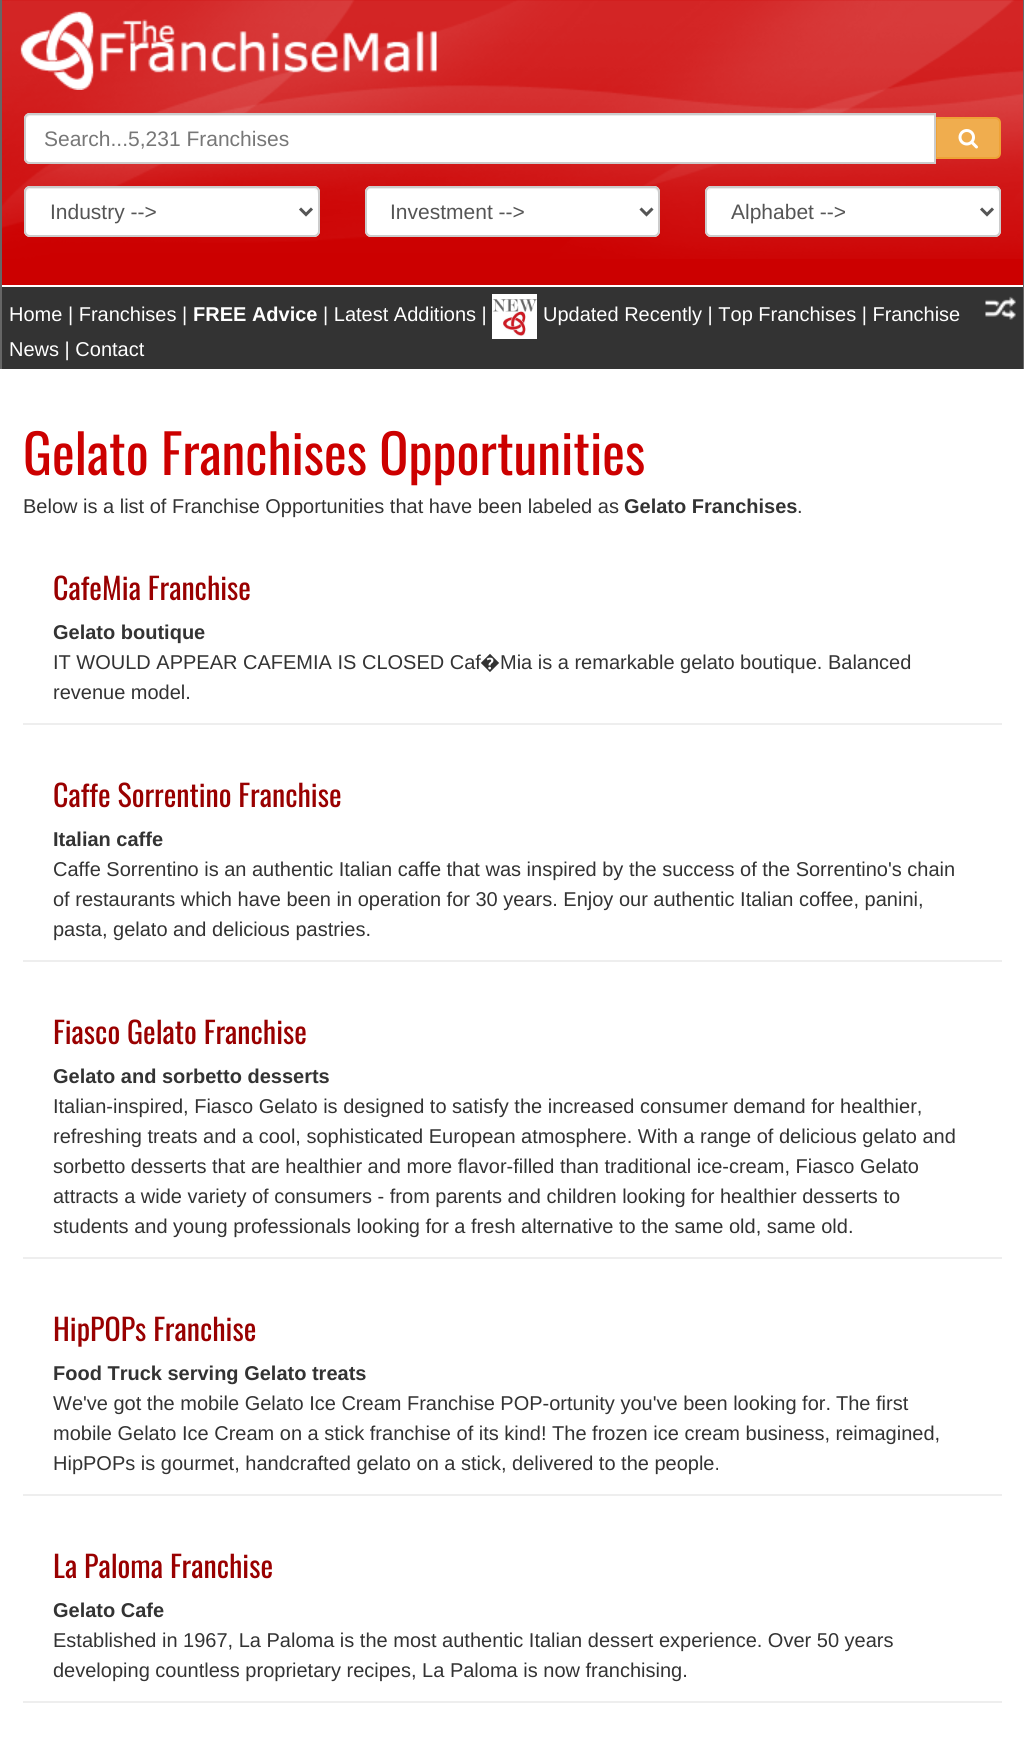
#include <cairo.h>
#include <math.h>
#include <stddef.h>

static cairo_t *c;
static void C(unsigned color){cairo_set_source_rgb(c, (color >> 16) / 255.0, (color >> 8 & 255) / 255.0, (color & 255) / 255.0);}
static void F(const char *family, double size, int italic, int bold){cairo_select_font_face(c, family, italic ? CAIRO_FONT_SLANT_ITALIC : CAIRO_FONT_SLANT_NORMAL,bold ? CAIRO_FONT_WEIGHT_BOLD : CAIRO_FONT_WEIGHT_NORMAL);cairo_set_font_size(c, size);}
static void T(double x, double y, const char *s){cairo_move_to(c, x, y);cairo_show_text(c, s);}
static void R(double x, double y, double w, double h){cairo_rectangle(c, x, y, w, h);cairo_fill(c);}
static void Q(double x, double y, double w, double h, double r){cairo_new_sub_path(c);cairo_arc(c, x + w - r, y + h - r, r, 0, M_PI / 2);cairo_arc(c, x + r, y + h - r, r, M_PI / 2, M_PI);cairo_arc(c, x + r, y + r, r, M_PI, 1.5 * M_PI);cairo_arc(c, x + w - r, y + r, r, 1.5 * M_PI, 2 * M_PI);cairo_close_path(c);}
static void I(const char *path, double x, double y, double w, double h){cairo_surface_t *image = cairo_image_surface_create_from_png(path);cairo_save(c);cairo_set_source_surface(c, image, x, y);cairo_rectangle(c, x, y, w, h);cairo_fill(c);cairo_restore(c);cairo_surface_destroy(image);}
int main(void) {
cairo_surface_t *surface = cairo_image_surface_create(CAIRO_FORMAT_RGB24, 1024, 1758);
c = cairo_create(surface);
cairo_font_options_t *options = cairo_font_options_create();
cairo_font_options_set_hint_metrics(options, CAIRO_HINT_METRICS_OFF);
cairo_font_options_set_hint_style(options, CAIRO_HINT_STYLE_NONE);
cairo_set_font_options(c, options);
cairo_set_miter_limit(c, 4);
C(0xffffff);
cairo_paint(c);
C(0x666666);
R(1023,0,1,369);
R(0,0,2,369);
C(0xcc0000);
R(2,0,1021,285);
I("1.png",2,0,1021,259);
I("2.png",20,11,417,79);
C(0xf0ad4e);
cairo_new_path(c);
cairo_move_to(c,936,118);
cairo_line_to(c,995,118);
cairo_curve_to(c,998,118,1000,120,1000,123);
cairo_line_to(c,1000,153);
cairo_curve_to(c,1000,156,998,158,995,158);
cairo_line_to(c,936,158);
cairo_close_path(c);
cairo_fill_preserve(c);
C(0xeea236);
cairo_stroke(c);
C(0xffffff);
cairo_new_path(c);
cairo_move_to(c,30,113);
cairo_line_to(c,936,113);
cairo_line_to(c,936,164);
cairo_line_to(c,30,164);
cairo_curve_to(c,26.5,164,24,161.5,24,158);
cairo_line_to(c,24,119);
cairo_curve_to(c,24,115.5,26.5,113,30,113);
cairo_close_path(c);
cairo_fill(c);
C(0xececec);
cairo_new_path(c);
cairo_move_to(c,30,116);
cairo_line_to(c,934,116);
cairo_line_to(c,934,162);
cairo_line_to(c,935,162);
cairo_line_to(c,935,114);
cairo_line_to(c,31,114);
cairo_curve_to(c,28,114,26,117,26,120);
cairo_curve_to(c,26,118,28,116,30,116);
cairo_close_path(c);
cairo_fill(c);
cairo_new_path(c);
cairo_move_to(c,30,114);
cairo_line_to(c,935,114);
cairo_line_to(c,935,163);
cairo_line_to(c,30,163);
cairo_curve_to(c,27,163,25,161,25,158);
cairo_line_to(c,25,119);
cairo_curve_to(c,25,116,27,114,30,114);
cairo_close_path(c);
C(0xcccccc);
cairo_stroke(c);
F("Liberation Sans",21,0,0);
C(0x777777);
T(44,146,"Search...5,231 Franchises");
I("3.png",958,129,20,20);
C(0xffffff);
Q(24,186,296,51,6);
cairo_fill(c);
C(0xececec);
cairo_new_path(c);
cairo_move_to(c,30,189);
cairo_line_to(c,314,189);
cairo_line_to(c,317,190);
cairo_line_to(c,318,194);
cairo_line_to(c,318,193);
cairo_curve_to(c,318,190,316,188,313,188);
cairo_line_to(c,31,188);
cairo_curve_to(c,28,188,26,190,26,193);
cairo_line_to(c,26,194);
cairo_curve_to(c,26,191,28,189,30,189);
cairo_close_path(c);
cairo_fill(c);
Q(25,187,294,49,5);
C(0xcccccc);
cairo_stroke(c);
cairo_new_path(c);
cairo_move_to(c,300,208.5);
cairo_line_to(c,306,214.5);
cairo_line_to(c,312,208.5);
C(0x555555);
cairo_set_line_width(c,3);
cairo_stroke(c);
T(50,219,"Industry -->");
C(0xffffff);
Q(365,186,295,51,6);
cairo_fill(c);
C(0xececec);
cairo_new_path(c);
cairo_move_to(c,370,189);
cairo_line_to(c,654,189);
cairo_curve_to(c,656,189,658,191,658,194);
cairo_line_to(c,658,232);
cairo_line_to(c,657,235);
cairo_curve_to(c,658,234,659,232,659,231);
cairo_line_to(c,659,193);
cairo_curve_to(c,659,190,657,188,654,188);
cairo_line_to(c,371,188);
cairo_curve_to(c,368,188,366,190,366,193);
cairo_line_to(c,366,194);
cairo_curve_to(c,366,191,368,189,370,189);
cairo_close_path(c);
cairo_fill(c);
Q(366,187,293,49,5);
C(0xcccccc);
cairo_set_line_width(c,2);
cairo_stroke(c);
cairo_new_path(c);
cairo_move_to(c,640.5,208.5);
cairo_line_to(c,646.5,214.5);
cairo_line_to(c,652.5,208.5);
C(0x555555);
cairo_set_line_width(c,3);
cairo_stroke(c);
T(390,219,"Investment -->");
C(0xffffff);
Q(705,186,296,51,6);
cairo_fill(c);
C(0xececec);
cairo_new_path(c);
cairo_move_to(c,711,189);
cairo_line_to(c,994,189);
cairo_curve_to(c,997,189,999,191,999,194);
cairo_curve_to(c,999,191,997,188,994,188);
cairo_line_to(c,711,188);
cairo_curve_to(c,710,188,709,189,708,190);
cairo_close_path(c);
cairo_fill(c);
Q(706,187,294,49,5);
C(0xcccccc);
cairo_set_line_width(c,2);
cairo_stroke(c);
cairo_new_path(c);
cairo_move_to(c,981,208.5);
cairo_line_to(c,987,214.5);
cairo_line_to(c,993,208.5);
C(0x555555);
cairo_set_line_width(c,3);
cairo_stroke(c);
T(731,219,"Alphabet -->");
C(0x333333);
R(2,287,1021,82);
F("Liberation Sans",20,0,0);
C(0xffffff);
T(9,321,"Home | Franchises |");
F("Liberation Sans",20,0,1);
T(193,321,"FREE Advice");
F("Liberation Sans",20,0,0);
T(323,321,"| Latest Additions |");
I("4.png",492,294,45,45);
T(543,321,"Updated Recently | Top Franchises | Franchise");
I("5.png",985,296,31,24);
T(9,356,"News | Contact");
F("Oswald",54,0,0);
C(0xcc0000);
T(23,475,"Gelato Franchises Opportunities");
F("Liberation Sans",20,0,0);
C(0x333333);
T(23,513,"Below is a list of Franchise Opportunities that have been labeled as");
F("Liberation Sans",20,0,1);
T(624,513,"Gelato Franchises");
F("Liberation Sans",20,0,0);
T(797,513,".");
C(0xeeeeee);
R(23,723,979,2);
F("Oswald",30,0,0);
C(0x990000);
T(53,600,"CafeMia Franchise");
F("Liberation Sans",20,0,1);
C(0x333333);
T(53,639,"Gelato boutique");
F("Liberation Sans",20,0,0);
T(53,669,"IT WOULD APPEAR CAFEMIA IS CLOSED Caf");
F("Noto Sans",20,0,0);
T(480,669,"�");
F("Liberation Sans",20,0,0);
T(500,669,"Mia is a remarkable gelato boutique. Balanced");
T(53,699,"revenue model.");
C(0xeeeeee);
R(23,960,979,2);
F("Oswald",30,0,0);
C(0x990000);
T(53,807,"Caffe Sorrentino Franchise");
F("Liberation Sans",20,0,1);
C(0x333333);
T(53,846,"Italian caffe");
F("Liberation Sans",20,0,0);
T(53,876,"Caffe Sorrentino is an authentic Italian caffe that was inspired by the success of the Sorrentino's chain");
T(53,906,"of restaurants which have been in operation for 30 years. Enjoy our authentic Italian coffee, panini,");
T(53,936,"pasta, gelato and delicious pastries.");
C(0xeeeeee);
R(23,1257,979,2);
F("Oswald",30,0,0);
C(0x990000);
T(53,1044,"Fiasco Gelato Franchise");
F("Liberation Sans",20,0,1);
C(0x333333);
T(53,1083,"Gelato and sorbetto desserts");
F("Liberation Sans",20,0,0);
T(53,1113,"Italian-inspired, Fiasco Gelato is designed to satisfy the increased consumer demand for healthier,");
T(53,1143,"refreshing treats and a cool, sophisticated European atmosphere. With a range of delicious gelato and");
T(53,1173,"sorbetto desserts that are healthier and more flavor-filled than traditional ice-cream, Fiasco Gelato");
T(53,1203,"attracts a wide variety of consumers - from parents and children looking for healthier desserts to");
T(53,1233,"students and young professionals looking for a fresh alternative to the same old, same old.");
C(0xeeeeee);
R(23,1494,979,2);
F("Oswald",30,0,0);
C(0x990000);
T(53,1341,"HipPOPs Franchise");
F("Liberation Sans",20,0,1);
C(0x333333);
T(53,1380,"Food Truck serving Gelato treats");
F("Liberation Sans",20,0,0);
T(53,1410,"We've got the mobile Gelato Ice Cream Franchise POP-ortunity you've been looking for.");
T(836,1410,"The first");
T(53,1440,"mobile Gelato Ice Cream on a stick franchise of its kind! The frozen ice cream business, reimagined,");
T(53,1470,"HipPOPs is gourmet, handcrafted gelato on a stick, delivered to the people.");
C(0xeeeeee);
R(23,1701,979,2);
F("Oswald",30,0,0);
C(0x990000);
T(53,1578,"La Paloma Franchise");
F("Liberation Sans",20,0,1);
C(0x333333);
T(53,1617,"Gelato Cafe");
F("Liberation Sans",20,0,0);
T(53,1647,"Established in 1967, La Paloma is the most authentic Italian dessert experience. Over 50 years");
T(53,1677,"developing countless proprietary recipes, La Paloma is now franchising.");
cairo_surface_write_to_png(surface, "o.png");
cairo_font_options_destroy(options);
cairo_destroy(c);
cairo_surface_destroy(surface);
return 0;
}
